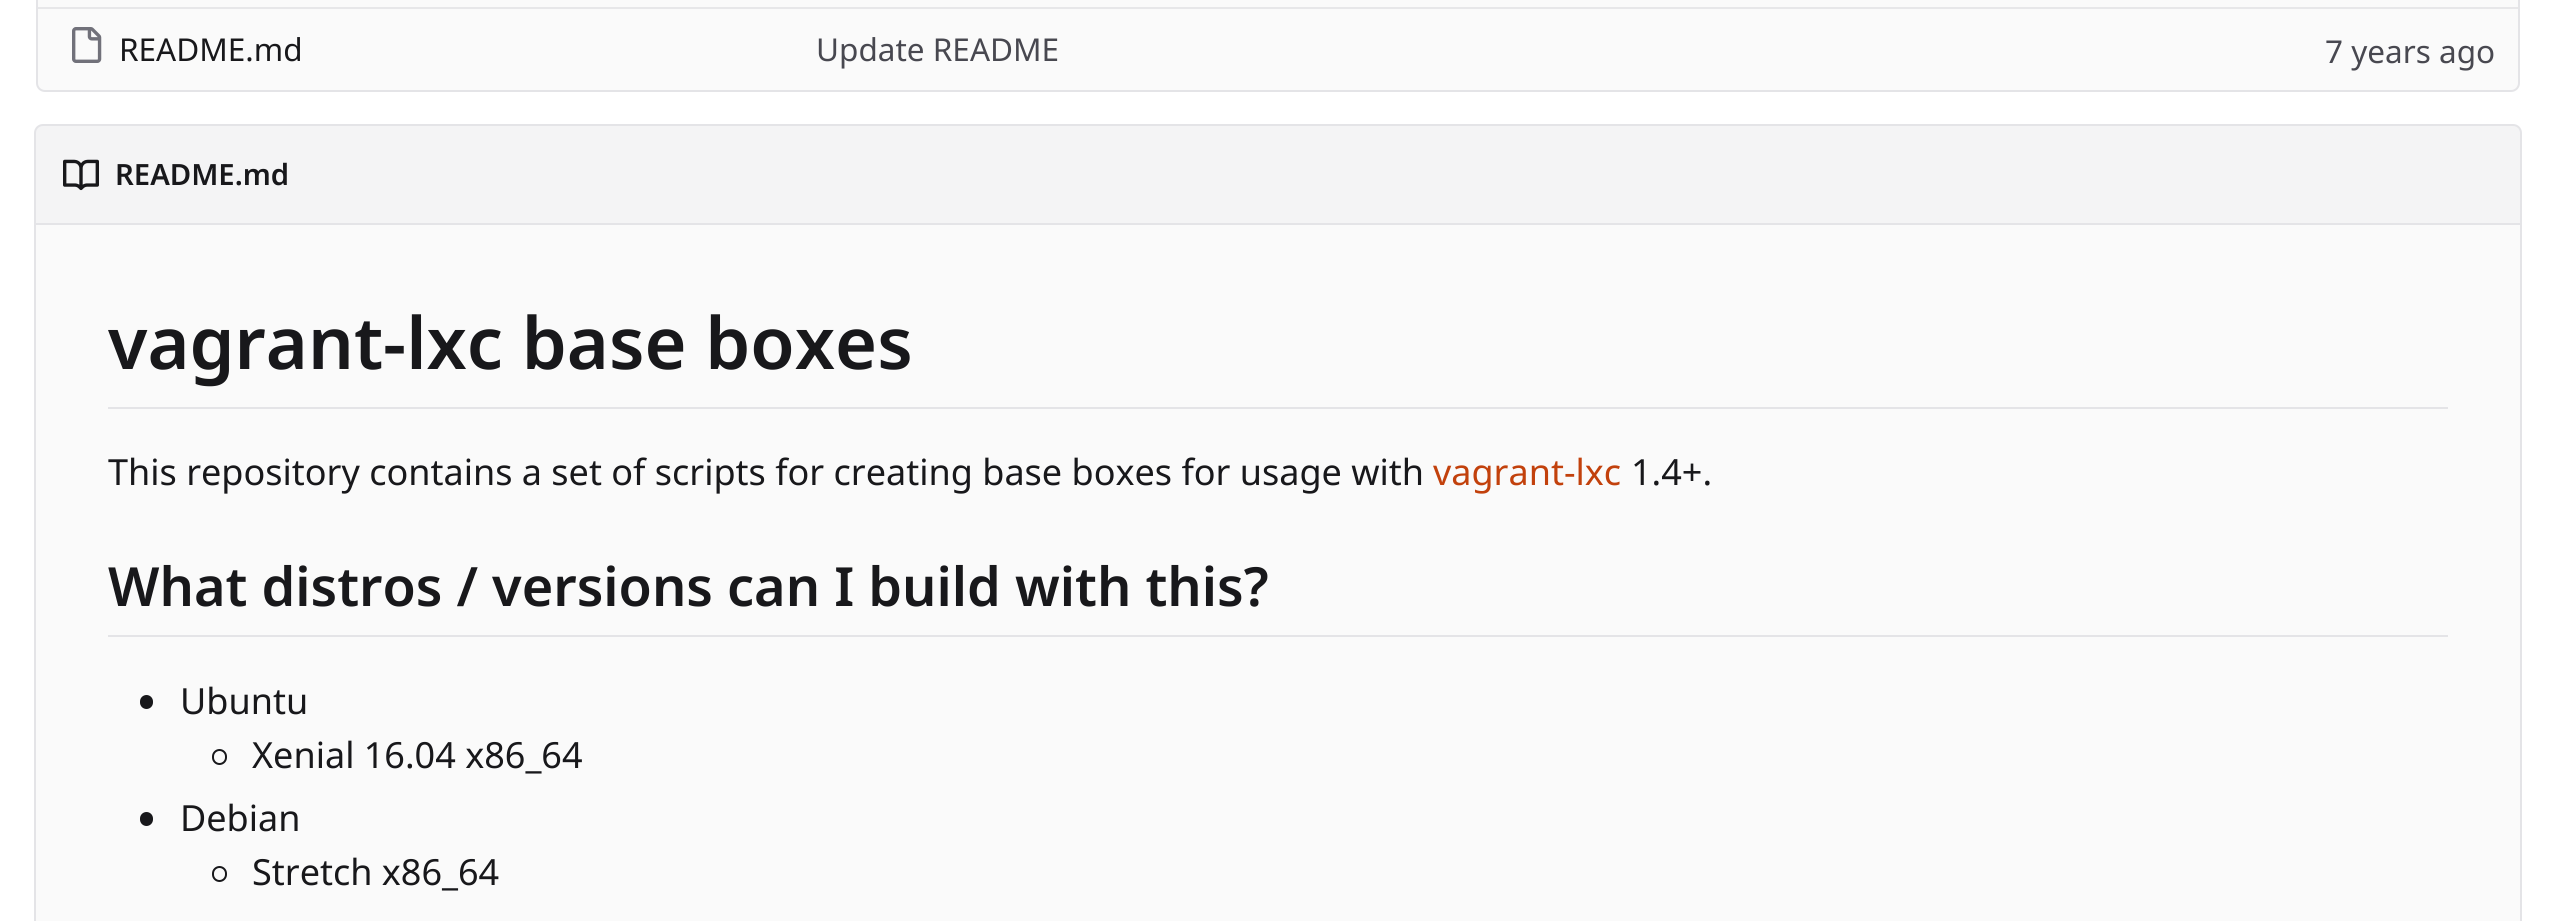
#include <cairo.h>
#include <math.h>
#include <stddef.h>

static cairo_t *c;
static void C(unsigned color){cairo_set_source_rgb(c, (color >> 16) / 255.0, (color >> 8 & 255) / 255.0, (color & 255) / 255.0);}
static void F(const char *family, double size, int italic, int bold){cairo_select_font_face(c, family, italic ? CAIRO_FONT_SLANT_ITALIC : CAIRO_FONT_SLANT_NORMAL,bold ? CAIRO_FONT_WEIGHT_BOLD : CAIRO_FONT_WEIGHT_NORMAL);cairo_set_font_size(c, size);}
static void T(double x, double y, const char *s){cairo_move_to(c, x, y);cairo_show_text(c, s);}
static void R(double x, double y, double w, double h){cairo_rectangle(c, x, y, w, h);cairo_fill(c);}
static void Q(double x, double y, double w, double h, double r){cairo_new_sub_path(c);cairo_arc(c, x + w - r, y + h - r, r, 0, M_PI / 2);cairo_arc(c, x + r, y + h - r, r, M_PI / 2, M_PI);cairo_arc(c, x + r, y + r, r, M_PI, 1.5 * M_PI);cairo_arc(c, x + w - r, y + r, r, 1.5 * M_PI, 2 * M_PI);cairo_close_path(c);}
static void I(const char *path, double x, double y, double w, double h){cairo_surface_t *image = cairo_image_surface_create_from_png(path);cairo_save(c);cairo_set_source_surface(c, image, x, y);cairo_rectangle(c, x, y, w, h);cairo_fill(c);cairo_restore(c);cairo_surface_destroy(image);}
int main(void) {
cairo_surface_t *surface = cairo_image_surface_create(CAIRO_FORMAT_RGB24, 2554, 921);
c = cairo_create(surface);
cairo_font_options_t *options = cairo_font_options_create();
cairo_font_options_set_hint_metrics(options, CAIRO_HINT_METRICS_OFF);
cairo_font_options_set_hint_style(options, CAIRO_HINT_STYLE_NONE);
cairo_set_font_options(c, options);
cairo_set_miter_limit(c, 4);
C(0xffffff);
cairo_paint(c);
C(0xfafafa);
cairo_new_path(c);
cairo_move_to(c,37,-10);
cairo_line_to(c,2519,-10);
cairo_line_to(c,2519,83);
cairo_curve_to(c,2519,87.5,2515.5,91,2511,91);
cairo_line_to(c,45,91);
cairo_curve_to(c,40.5,91,37,87.5,37,83);
cairo_close_path(c);
cairo_fill_preserve(c);
C(0xe4e4e7);
cairo_stroke(c);
C(0xe7e7e9);
R(38,7,2480,2);
I("1.png",72,27,30,36);
F("Noto Sans",31.5,0,0);
C(0x18181b);
T(119,61,"README.md");
C(0x484850);
T(816,61,"Update README");
T(2325,63,"7 years ago");
C(0xf4f4f5);
cairo_new_path(c);
cairo_move_to(c,43,125);
cairo_line_to(c,2513,125);
cairo_curve_to(c,2517.5,125,2521,128.5,2521,133);
cairo_line_to(c,2521,224);
cairo_line_to(c,35,224);
cairo_line_to(c,35,133);
cairo_curve_to(c,35,128.5,38.5,125,43,125);
cairo_close_path(c);
cairo_fill_preserve(c);
C(0xe4e4e7);
cairo_stroke(c);
I("2.png",63,159,36,32);
F("Noto Sans SemiBold",29.25,0,0);
C(0x18181b);
T(115,185,"README.md");
C(0xfafafa);
R(36,225,2484,696);
C(0xe4e4e7);
cairo_set_fill_rule(c,CAIRO_FILL_RULE_EVEN_ODD);
cairo_new_path(c);
cairo_move_to(c,34,225);
cairo_line_to(c,2522,225);
cairo_line_to(c,2522,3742);
cairo_curve_to(c,2522,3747,2518,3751,2513,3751);
cairo_line_to(c,43,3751);
cairo_curve_to(c,38,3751,34,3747,34,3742);
cairo_close_path(c);
cairo_move_to(c,36,225);
cairo_line_to(c,2520,225);
cairo_line_to(c,2520,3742);
cairo_curve_to(c,2520,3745,2517,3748,2513,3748);
cairo_line_to(c,43,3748);
cairo_curve_to(c,39,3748,36,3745,36,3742);
cairo_close_path(c);
cairo_fill(c);
R(108,407,2340,2);
F("Noto Sans SemiBold",72,0,0);
C(0x18181b);
T(108,369,"vagrant-lxc base boxes");
F("Noto Sans",36,0,0);
T(108,485,"This repository contains a set of scripts for creating base boxes for usage with");
C(0xc2410c);
T(1433,485,"vagrant-lxc");
C(0x18181b);
T(1631,485,"1.4+.");
C(0xe4e4e7);
R(108,635,2340,2);
F("Noto Sans SemiBold",54,0,0);
C(0x18181b);
T(108,606,"What distros / versions can I build with this?");
Q(140,695,13,14,6.5);
cairo_fill(c);
F("Noto Sans",36,0,0);
T(180,714,"Ubuntu");
Q(213,750,13,14,6.5);
cairo_stroke(c);
T(252,768,"Xenial 16.04 x86_64");
Q(140,812,13,14,6.5);
cairo_fill(c);
T(180,831,"Debian");
Q(213,867,13,14,6.5);
cairo_stroke(c);
T(252,885,"Stretch x86_64");
cairo_surface_write_to_png(surface, "o.png");
cairo_font_options_destroy(options);
cairo_destroy(c);
cairo_surface_destroy(surface);
return 0;
}
